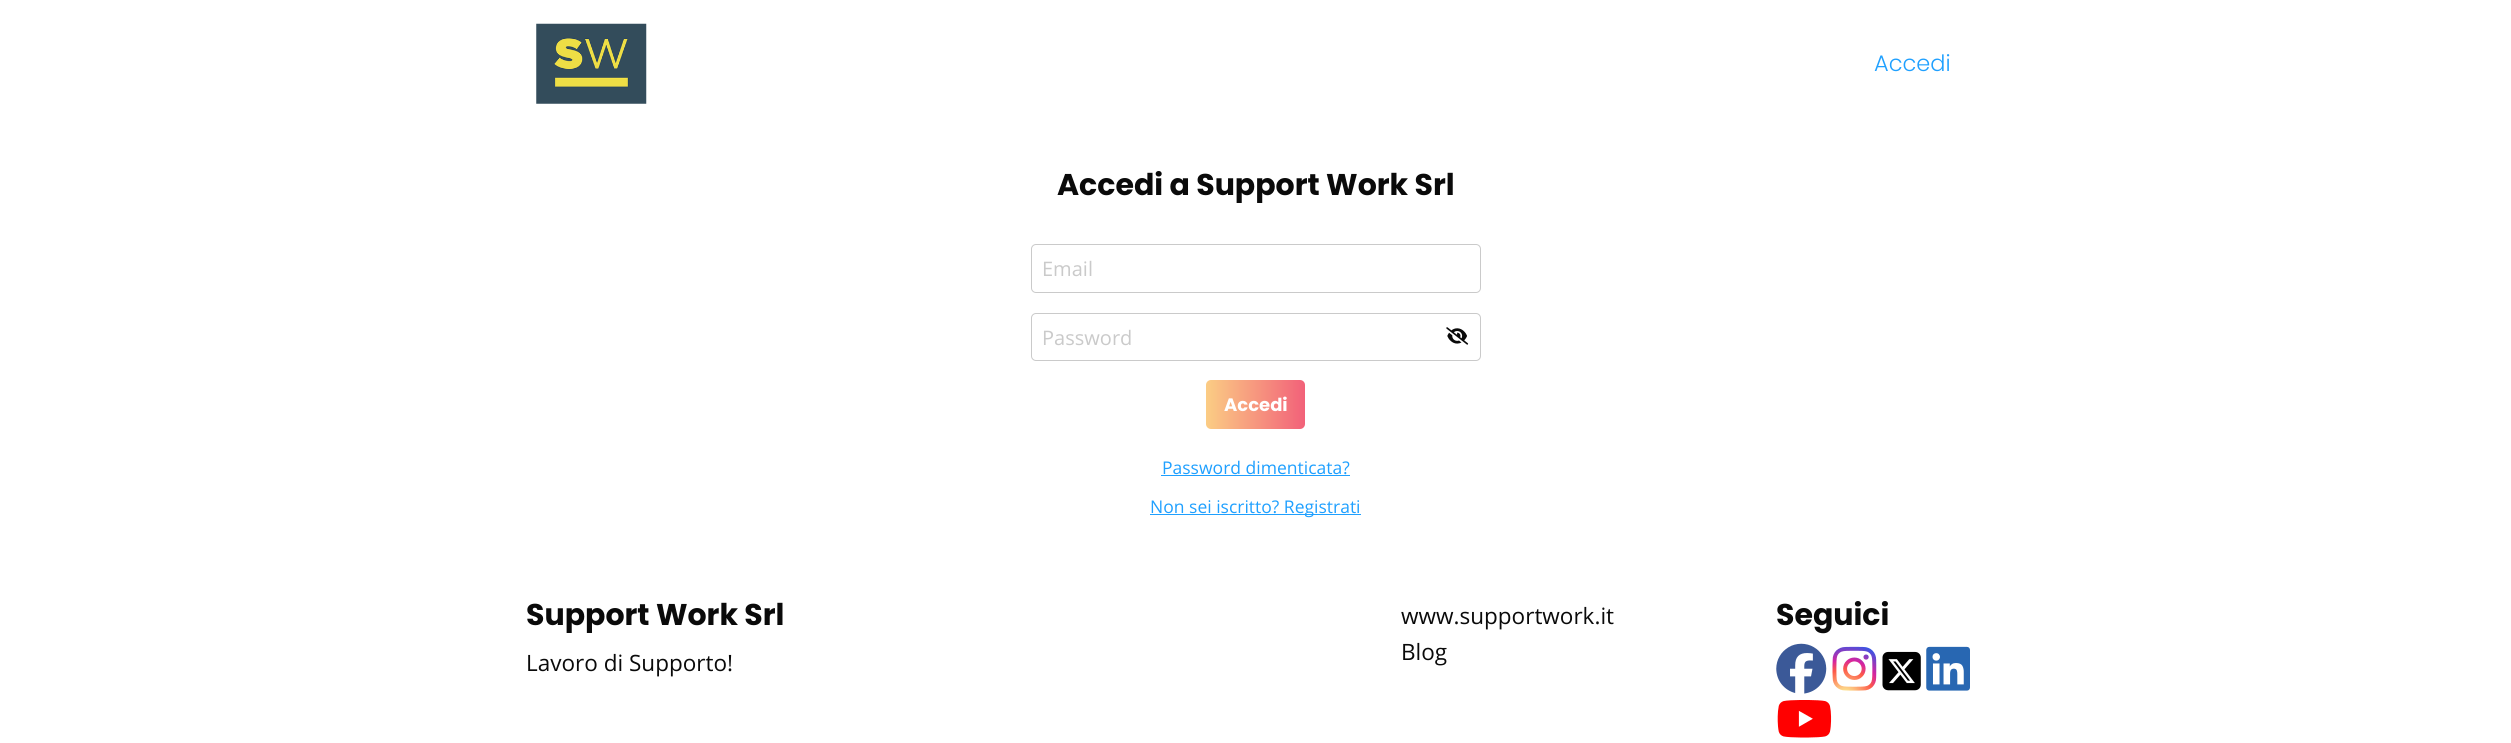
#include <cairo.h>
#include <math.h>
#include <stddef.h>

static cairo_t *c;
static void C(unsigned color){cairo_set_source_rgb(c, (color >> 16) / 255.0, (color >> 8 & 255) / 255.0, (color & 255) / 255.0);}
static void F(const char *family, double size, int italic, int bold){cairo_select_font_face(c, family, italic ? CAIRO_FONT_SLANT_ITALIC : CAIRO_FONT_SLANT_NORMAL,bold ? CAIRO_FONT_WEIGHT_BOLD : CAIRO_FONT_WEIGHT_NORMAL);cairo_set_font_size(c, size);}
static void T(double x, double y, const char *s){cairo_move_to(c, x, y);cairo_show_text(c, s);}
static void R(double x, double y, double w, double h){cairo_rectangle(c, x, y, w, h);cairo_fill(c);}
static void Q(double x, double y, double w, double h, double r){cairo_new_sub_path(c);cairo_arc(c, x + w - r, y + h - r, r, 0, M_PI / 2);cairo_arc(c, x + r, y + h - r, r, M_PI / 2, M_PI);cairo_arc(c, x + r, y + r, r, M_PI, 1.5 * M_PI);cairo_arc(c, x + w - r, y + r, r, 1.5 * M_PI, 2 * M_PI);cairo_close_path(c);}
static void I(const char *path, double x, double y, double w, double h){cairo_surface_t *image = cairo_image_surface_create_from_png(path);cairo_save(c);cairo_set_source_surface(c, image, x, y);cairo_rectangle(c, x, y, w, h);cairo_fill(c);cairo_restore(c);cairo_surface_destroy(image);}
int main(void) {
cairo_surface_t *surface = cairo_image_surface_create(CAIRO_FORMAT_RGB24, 2511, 743);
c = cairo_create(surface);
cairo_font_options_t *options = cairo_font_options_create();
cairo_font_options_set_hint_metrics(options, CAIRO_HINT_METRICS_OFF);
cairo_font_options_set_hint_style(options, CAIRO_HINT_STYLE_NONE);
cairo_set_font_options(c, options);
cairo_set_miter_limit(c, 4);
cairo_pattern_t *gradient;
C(0xffffff);
cairo_paint(c);
I("1.png",536,23,111,81);
F("Poppins Light",22.5,0,0);
C(0x1fa0ff);
T(1874,71,"Accedi");
F("Poppins",30,0,1);
C(0x0a0a0a);
T(1057,195,"Accedi a Support Work Srl");
Q(1031.5,244.5,449,48,4.5);
C(0xcacaca);
cairo_set_line_width(c,1);
cairo_stroke(c);
F("Open Sans",20,0,0);
T(1042,276,"Email");
Q(1031.5,313.5,449,47,4.5);
cairo_stroke(c);
T(1042,345,"Password");
I("2.png",1446,327,23,18);
gradient = cairo_pattern_create_linear(1206,404,1305,404);
cairo_pattern_add_color_stop_rgba(gradient,0,0.984,0.804,0.518,1);
cairo_pattern_add_color_stop_rgba(gradient,1,0.949,0.38,0.475,1);
cairo_set_source(c,gradient);
cairo_pattern_destroy(gradient);
Q(1206,380,99,49,5);
cairo_fill(c);
F("Poppins",18,0,1);
C(0xffffff);
T(1224,411,"Accedi");
F("Open Sans",17.5,0,0);
C(0x1fa0ff);
T(1162,474,"Password dimenticata?");
R(1161,475,189,1);
R(1150,514,211,1);
T(1150,513,"Non sei iscritto? Registrati");
F("Poppins",30,0,1);
C(0x0a0a0a);
T(526,625,"Support Work Srl");
F("Open Sans",22.5,0,0);
T(526,671,"Lavoro di Supporto!");
T(1401,624,"www.supportwork.it");
T(1401,660,"Blog");
F("Poppins",30,0,1);
T(1776,625,"Seguici");
I("3.png",1776,643,51,51);
I("4.png",1832,646,45,45);
I("5.png",1882,651,39,40);
I("6.png",1926,646,44,45);
I("7.png",1777,700,55,38);
cairo_surface_write_to_png(surface, "o.png");
cairo_font_options_destroy(options);
cairo_destroy(c);
cairo_surface_destroy(surface);
return 0;
}
